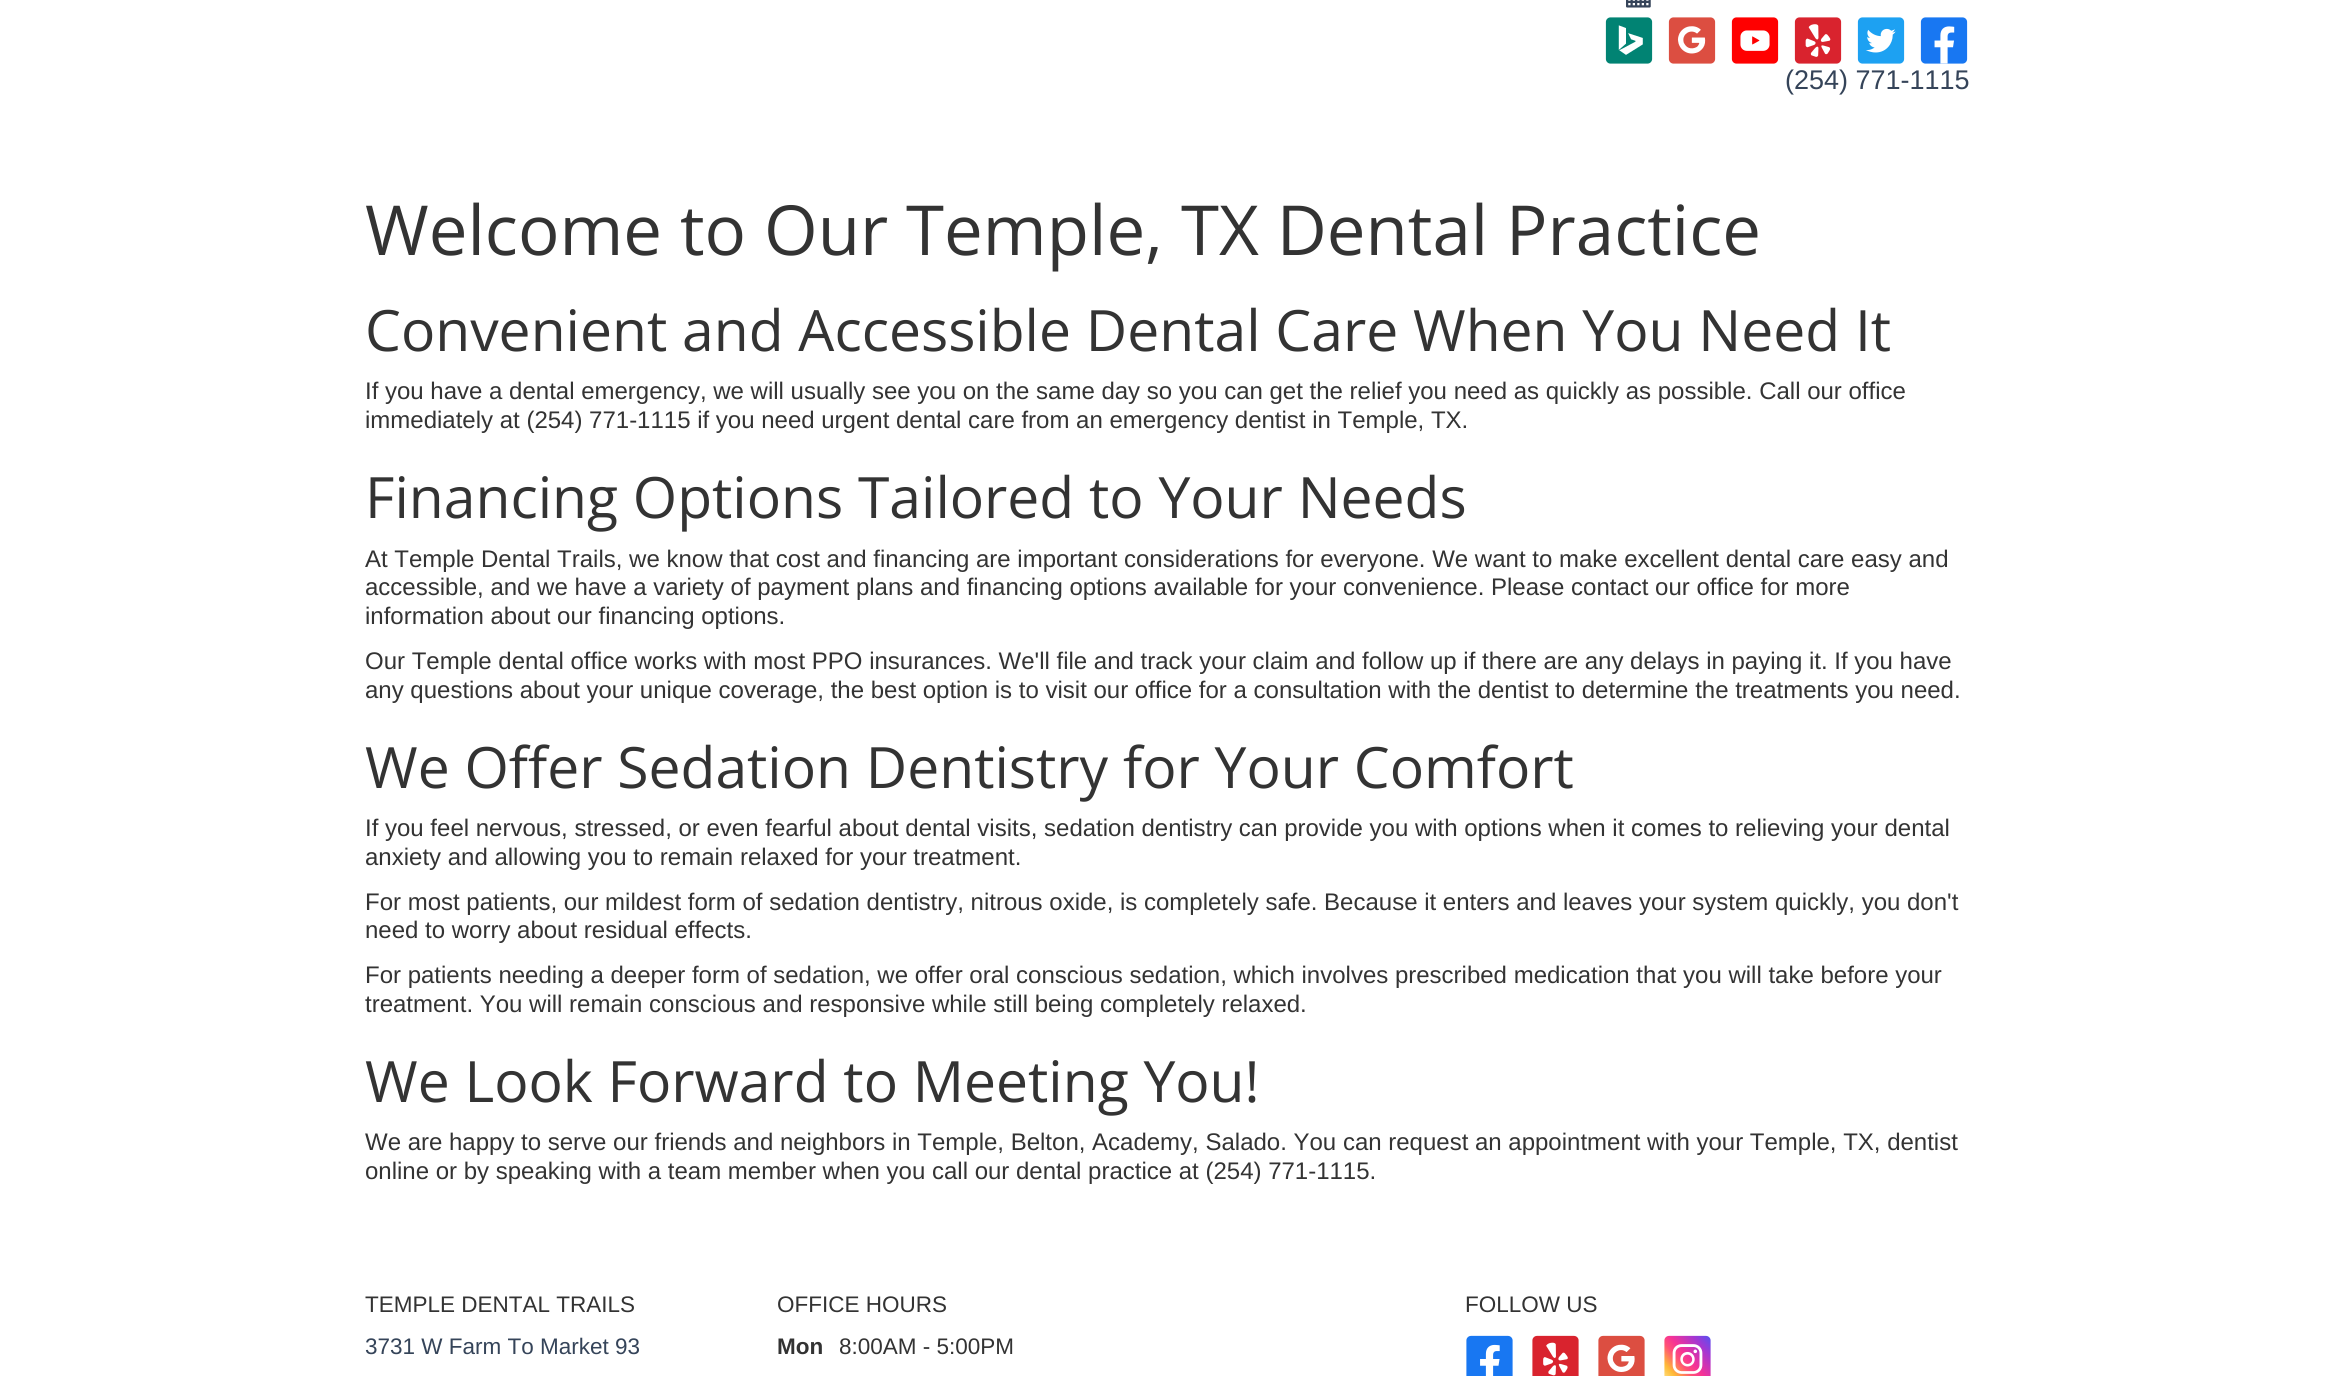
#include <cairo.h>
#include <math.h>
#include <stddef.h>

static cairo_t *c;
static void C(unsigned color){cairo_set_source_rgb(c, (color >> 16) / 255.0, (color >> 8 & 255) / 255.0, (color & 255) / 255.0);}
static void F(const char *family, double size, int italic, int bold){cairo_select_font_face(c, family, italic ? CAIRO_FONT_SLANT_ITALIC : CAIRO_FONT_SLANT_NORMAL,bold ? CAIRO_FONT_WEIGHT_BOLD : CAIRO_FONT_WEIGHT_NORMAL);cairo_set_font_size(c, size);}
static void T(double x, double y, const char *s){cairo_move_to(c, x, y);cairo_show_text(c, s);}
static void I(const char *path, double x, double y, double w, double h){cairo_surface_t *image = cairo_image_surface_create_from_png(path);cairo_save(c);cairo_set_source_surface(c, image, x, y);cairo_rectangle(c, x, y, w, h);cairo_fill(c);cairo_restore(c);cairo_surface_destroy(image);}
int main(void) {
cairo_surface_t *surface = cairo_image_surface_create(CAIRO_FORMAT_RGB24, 2333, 1376);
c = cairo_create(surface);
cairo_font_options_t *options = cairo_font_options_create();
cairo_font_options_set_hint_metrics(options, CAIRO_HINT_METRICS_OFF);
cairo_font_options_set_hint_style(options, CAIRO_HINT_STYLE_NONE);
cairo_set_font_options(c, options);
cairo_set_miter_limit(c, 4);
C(0xffffff);
cairo_paint(c);
I("1.png",1626,0,25,8);
I("2.png",1605,17,48,47);
I("3.png",1668,17,48,47);
I("4.png",1731,17,48,47);
I("5.png",1794,17,48,47);
I("6.png",1857,17,48,47);
I("7.png",1920,17,48,47);
F("Liberation Sans",27,0,0);
C(0x354459);
T(1785,89,"(254) 771-1115");
F("Open Sans",69,0,0);
C(0x333333);
T(365,255,"Welcome to Our Temple, TX Dental Practice");
F("Open Sans",57,0,0);
T(365,351,"Convenient and Accessible Dental Care When You Need It");
F("Liberation Sans",24,0,0);
T(365,399,"If you have a dental emergency, we will usually see you on the same day so you can get the relief you need as quickly as possible. Call our office");
T(365,428,"immediately at (254) 771-1115 if you need urgent dental care from an emergency dentist in Temple, TX.");
F("Open Sans",57,0,0);
T(365,518,"Financing Options Tailored to Your Needs");
F("Liberation Sans",24,0,0);
T(365,567,"At Temple Dental Trails, we know that cost and financing are important considerations for everyone. We want to make excellent dental care easy and");
T(365,595,"accessible, and we have a variety of payment plans and financing options available for your convenience. Please contact our office for more");
T(365,624,"information about our financing options.");
T(365,669,"Our Temple dental office works with most PPO insurances. We'll file and track your claim and follow up if there are any delays in paying it. If you have");
T(365,698,"any questions about your unique coverage, the best option is to visit our office for a consultation with the dentist to determine the treatments you need.");
F("Open Sans",57,0,0);
T(365,788,"We Offer Sedation Dentistry for Your Comfort");
F("Liberation Sans",24,0,0);
T(365,836,"If you feel nervous, stressed, or even fearful about dental visits, sedation dentistry can provide you with options when it comes to relieving your dental");
T(365,865,"anxiety and allowing you to remain relaxed for your treatment.");
T(365,910,"For most patients, our mildest form of sedation dentistry, nitrous oxide, is completely safe. Because it enters and leaves your system quickly, you don't");
T(365,938,"need to worry about residual effects.");
T(365,983,"For patients needing a deeper form of sedation, we offer oral conscious sedation, which involves prescribed medication that you will take before your");
T(365,1012,"treatment. You will remain conscious and responsive while still being completely relaxed.");
F("Open Sans",57,0,0);
T(365,1102,"We Look Forward to Meeting You!");
F("Liberation Sans",24,0,0);
T(365,1150,"We are happy to serve our friends and neighbors in Temple, Belton, Academy, Salado. You can request an appointment with your Temple, TX, dentist");
T(365,1179,"online or by speaking with a team member when you call our dental practice at (254) 771-1115.");
F("Liberation Sans",22.5,0,0);
T(365,1312,"TEMPLE DENTAL TRAILS");
C(0x354459);
T(365,1354,"3731 W Farm To Market 93");
C(0x333333);
T(777,1312,"OFFICE HOURS");
F("Liberation Sans",22.5,0,1);
T(777,1354,"Mon");
F("Liberation Sans",22.5,0,0);
T(839,1354,"8:00AM - 5:00PM");
T(1465,1312,"FOLLOW US");
I("8.png",1466,1335,47,41);
I("9.png",1532,1335,47,41);
I("10.png",1598,1335,47,41);
I("11.png",1664,1335,47,41);
cairo_surface_write_to_png(surface, "o.png");
cairo_font_options_destroy(options);
cairo_destroy(c);
cairo_surface_destroy(surface);
return 0;
}
